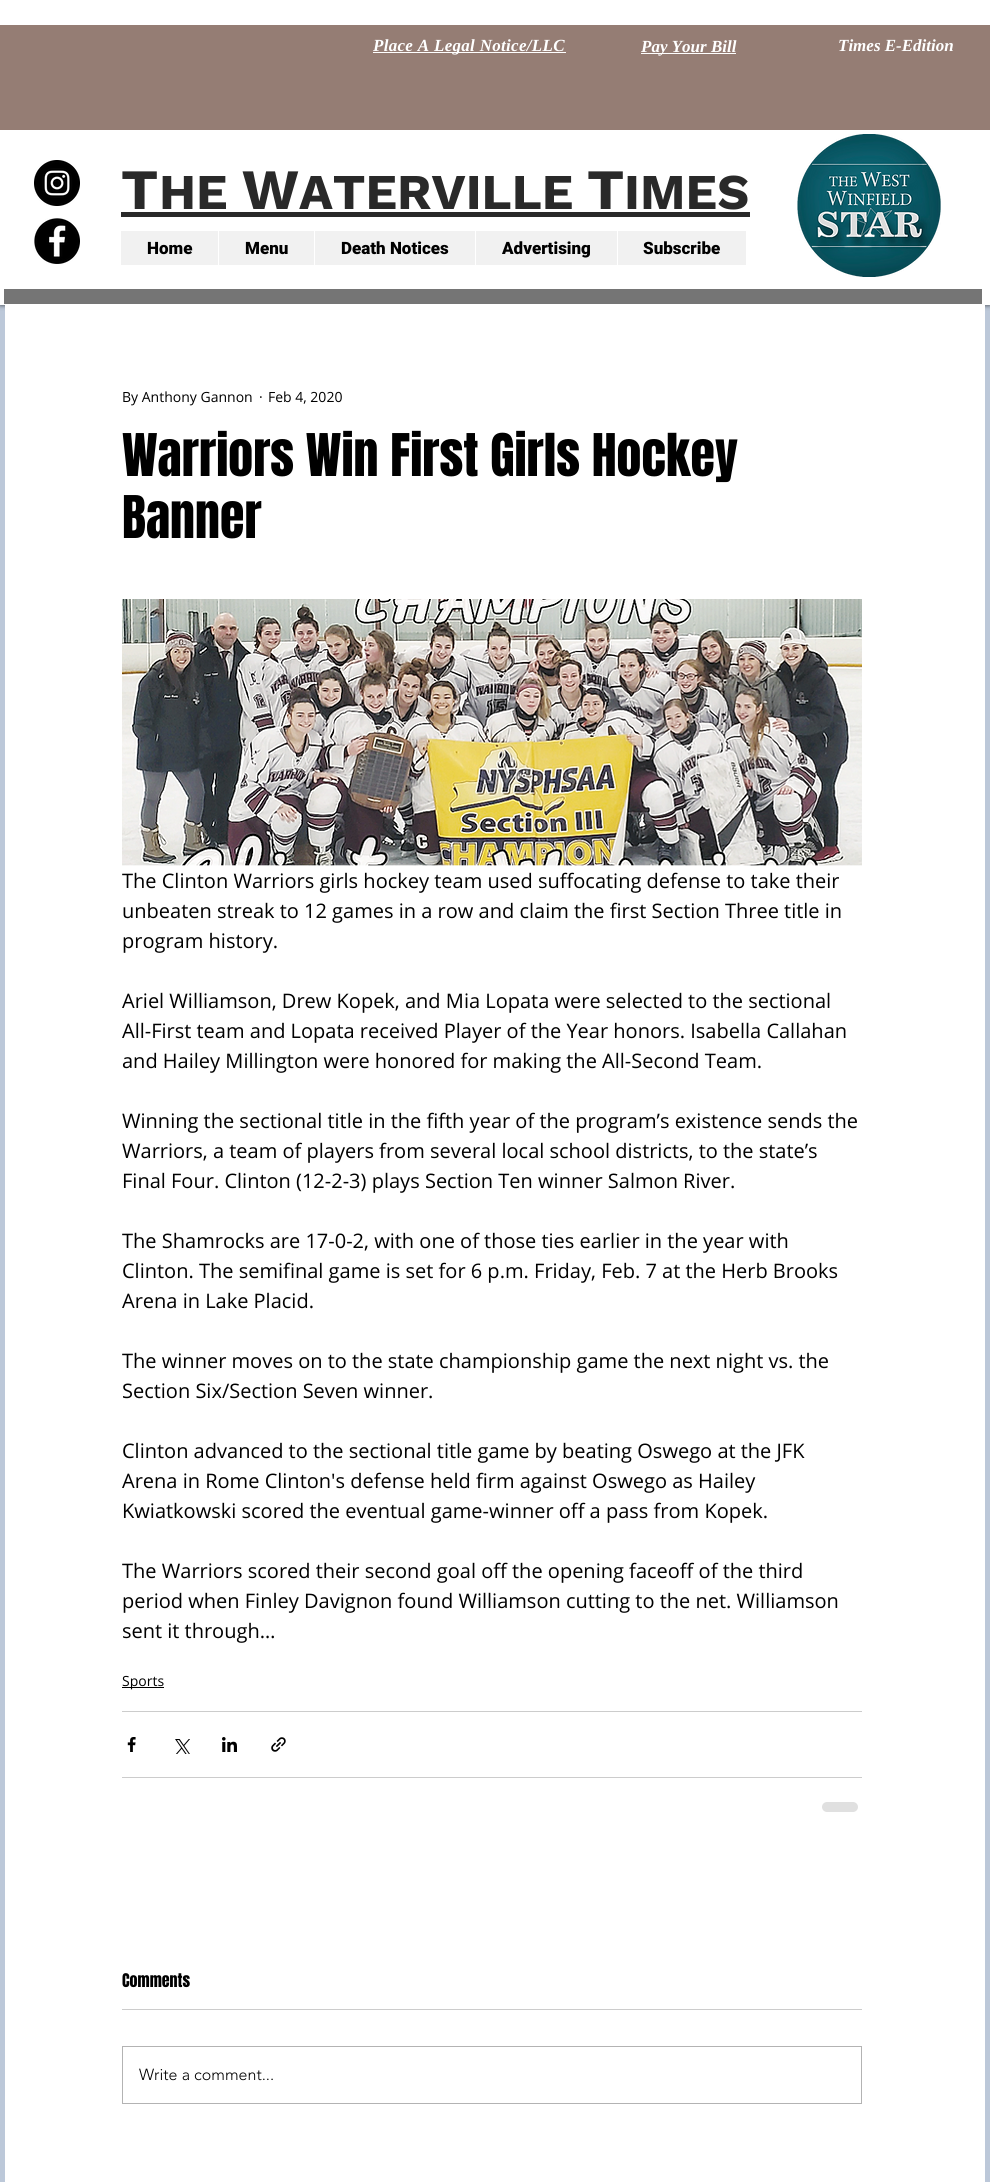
#include <cairo.h>
#include <math.h>
#include <stddef.h>

static cairo_t *c;
static void C(unsigned color){cairo_set_source_rgb(c, (color >> 16) / 255.0, (color >> 8 & 255) / 255.0, (color & 255) / 255.0);}
static void F(const char *family, double size, int italic, int bold){cairo_select_font_face(c, family, italic ? CAIRO_FONT_SLANT_ITALIC : CAIRO_FONT_SLANT_NORMAL,bold ? CAIRO_FONT_WEIGHT_BOLD : CAIRO_FONT_WEIGHT_NORMAL);cairo_set_font_size(c, size);}
static void T(double x, double y, const char *s){cairo_move_to(c, x, y);cairo_show_text(c, s);}
static void L(double x, double y, const char *s, double letter, double word){cairo_move_to(c, x, y);while (*s) {char ch[5] = {0};int n = 0;do ch[n++] = *s++; while ((*s & 0xC0) == 0x80);cairo_show_text(c, ch);cairo_rel_move_to(c, letter + word * (*ch == ' '), 0);}}
static void R(double x, double y, double w, double h){cairo_rectangle(c, x, y, w, h);cairo_fill(c);}
static void Q(double x, double y, double w, double h, double r){cairo_new_sub_path(c);cairo_arc(c, x + w - r, y + h - r, r, 0, M_PI / 2);cairo_arc(c, x + r, y + h - r, r, M_PI / 2, M_PI);cairo_arc(c, x + r, y + r, r, M_PI, 1.5 * M_PI);cairo_arc(c, x + w - r, y + r, r, 1.5 * M_PI, 2 * M_PI);cairo_close_path(c);}
static void S(double x, double y, double w, double h, double r, double blur, double alpha){cairo_push_group_with_content(c, CAIRO_CONTENT_ALPHA);cairo_set_operator(c, CAIRO_OPERATOR_SOURCE);for (int i = 15; i >= -15 && fmin(w, h) + blur * i / 3 > 0; i -= 2) {double e = blur * i / 6;cairo_set_source_rgba(c, 0, 0, 0, alpha * erfc((i - 1) / 8.5) / 2);Q(x - e, y - e, w + 2 * e, h + 2 * e, fmax(0, fmin(r + e + blur * .6, fmin(w, h) / 2 + e)));cairo_fill(c);}cairo_pattern_t *soft = cairo_pop_group(c);cairo_mask(c, soft);cairo_pattern_destroy(soft);}
static void I(const char *path, double x, double y, double w, double h){cairo_surface_t *image = cairo_image_surface_create_from_png(path);cairo_save(c);cairo_set_source_surface(c, image, x, y);cairo_rectangle(c, x, y, w, h);cairo_fill(c);cairo_restore(c);cairo_surface_destroy(image);}
int main(void) {
cairo_surface_t *surface = cairo_image_surface_create(CAIRO_FORMAT_RGB24, 990, 2182);
c = cairo_create(surface);
cairo_font_options_t *options = cairo_font_options_create();
cairo_font_options_set_hint_metrics(options, CAIRO_HINT_METRICS_OFF);
cairo_font_options_set_hint_style(options, CAIRO_HINT_STYLE_NONE);
cairo_set_font_options(c, options);
cairo_set_miter_limit(c, 4);
C(0xbcc8d9);
cairo_paint(c);
C(0x000000);
S(0,0,990,305,0,2.5,.7);
C(0xffffff);
R(0,0,990,305);
C(0x957d74);
R(0,25,990,105);
C(0xffffff);
R(373,52,193,1);
F("Liberation Serif",17,1,1);
L(373,51,"Place A Legal Notice/LLC",.3,0);
R(641,53,95,1);
T(641,52,"Pay Your Bill");
T(838,51,"Times E-Edition");
I("1.png",34,160,46,46);
I("2.png",797,134,144,143);
I("3.png",34,218,46,46);
C(0x757575);
R(4,289,978,15);
F("Work Sans",57,0,1);
C(0x292929);
T(121,209,"T");
F("Work Sans",50,0,1);
T(159,209,"HE");
R(121,212,629,5);
F("Work Sans",57,0,1);
T(242,209,"W");
F("Work Sans",50,0,1);
T(299,209,"ATERVILLE");
F("Work Sans",57,0,1);
T(587,209,"T");
F("Work Sans",50,0,1);
T(624,209,"IMES");
C(0xf1f1f1);
R(121,231,625,34);
F("Roboto Black",17,0,0);
C(0x000000);
T(147,254,"Home");
C(0xffffff);
R(218,231,1,34);
C(0x000000);
T(245,254,"Menu");
C(0xffffff);
R(314,231,1,34);
C(0x000000);
T(341,254,"Death Notices");
C(0xffffff);
R(475,231,1,34);
C(0x000000);
T(502,254,"Advertising");
C(0xffffff);
R(617,231,1,34);
C(0x000000);
T(643,254,"Subscribe");
C(0xffffff);
R(5,305,980,1877);
F("Open Sans",14,0,0);
C(0x000000);
T(122,402,"By Anthony Gannon");
T(259,402,"·");
T(268,402,"Feb 4, 2020");
F("Anton",50,0,0);
T(122,476,"Warriors Win First Girls Hockey");
T(122,538,"Banner");
I("4.png",122,599,740,267);
F("Open Sans",20,0,0);
T(122,888,"The Clinton Warriors girls hockey team used suffocating defense to take their");
T(122,918,"unbeaten streak to 12 games in a row and claim the first Section Three title in");
T(122,948,"program history.");
T(122,1008,"Ariel Williamson, Drew Kopek, and Mia Lopata were selected to the sectional");
T(122,1038,"All-First team and Lopata received Player of the Year honors. Isabella Callahan");
T(122,1068,"and Hailey Millington were honored for making the All-Second Team.");
T(122,1128,"Winning the sectional title in the fifth year of the program’s existence sends the");
T(122,1158,"Warriors, a team of players from several local school districts, to the state’s");
T(122,1188,"Final Four. Clinton (12-2-3) plays Section Ten winner Salmon River.");
T(122,1248,"The Shamrocks are 17-0-2, with one of those ties earlier in the year with");
T(122,1278,"Clinton. The semifinal game is set for 6 p.m. Friday, Feb. 7 at the Herb Brooks");
T(122,1308,"Arena in Lake Placid.");
T(122,1368,"The winner moves on to the state championship game the next night vs. the");
T(122,1398,"Section Six/Section Seven winner.");
T(122,1458,"Clinton advanced to the sectional title game by beating Oswego at the JFK");
T(122,1488,"Arena in Rome Clinton's defense held firm against Oswego as Hailey");
T(122,1518,"Kwiatkowski scored the eventual game-winner off a pass from Kopek.");
T(122,1578,"The Warriors scored their second goal off the opening faceoff of the third");
T(122,1608,"period when Finley Davignon found Williamson cutting to the net. Williamson");
T(122,1638,"sent it through…");
R(122,1687,42,1);
F("Open Sans",14,0,0);
T(122,1686,"Sports");
C(0xcccccc);
R(122,1711,740,1);
I("5.png",127,1737,9,15);
I("6.png",175,1739,15,15);
I("7.png",222,1737,15,15);
I("8.png",271,1737,15,15);
R(122,1777,740,1);
C(0xe0e0e0);
Q(822,1802,36,10,5);
cairo_fill(c);
F("Anton",16,0,0);
C(0x000000);
T(122,1987,"Comments");
C(0xcccccc);
R(122,2009,740,1);
cairo_rectangle(c,122.5,2046.5,739,57);
C(0xb3b3b3);
cairo_set_line_width(c,1);
cairo_stroke(c);
F("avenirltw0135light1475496 Light",16,0,0);
C(0x000000);
T(139,2080,"Write a comment...");
cairo_surface_write_to_png(surface, "o.png");
cairo_font_options_destroy(options);
cairo_destroy(c);
cairo_surface_destroy(surface);
return 0;
}
